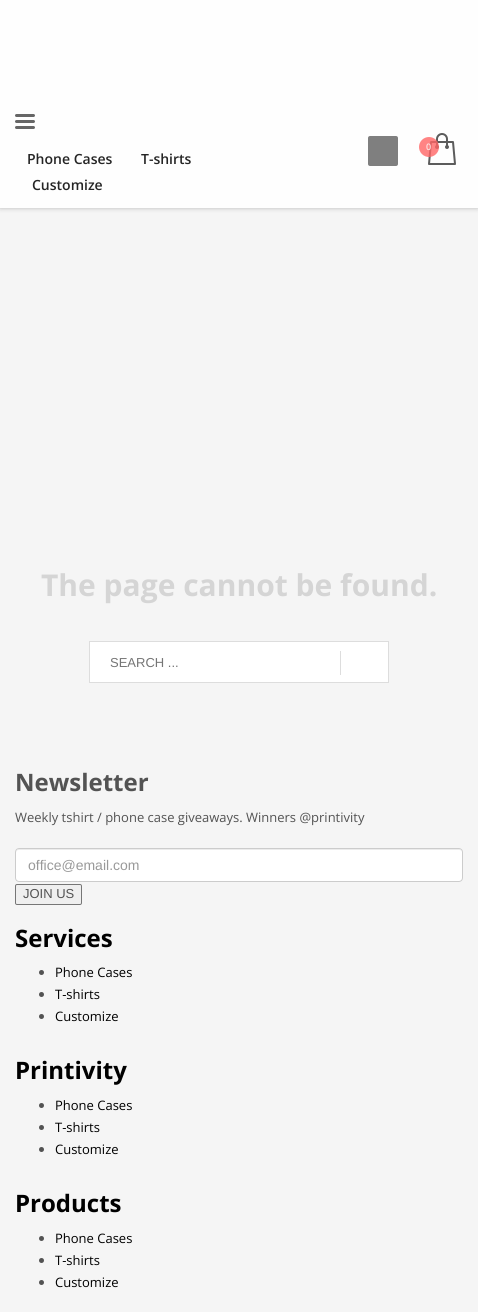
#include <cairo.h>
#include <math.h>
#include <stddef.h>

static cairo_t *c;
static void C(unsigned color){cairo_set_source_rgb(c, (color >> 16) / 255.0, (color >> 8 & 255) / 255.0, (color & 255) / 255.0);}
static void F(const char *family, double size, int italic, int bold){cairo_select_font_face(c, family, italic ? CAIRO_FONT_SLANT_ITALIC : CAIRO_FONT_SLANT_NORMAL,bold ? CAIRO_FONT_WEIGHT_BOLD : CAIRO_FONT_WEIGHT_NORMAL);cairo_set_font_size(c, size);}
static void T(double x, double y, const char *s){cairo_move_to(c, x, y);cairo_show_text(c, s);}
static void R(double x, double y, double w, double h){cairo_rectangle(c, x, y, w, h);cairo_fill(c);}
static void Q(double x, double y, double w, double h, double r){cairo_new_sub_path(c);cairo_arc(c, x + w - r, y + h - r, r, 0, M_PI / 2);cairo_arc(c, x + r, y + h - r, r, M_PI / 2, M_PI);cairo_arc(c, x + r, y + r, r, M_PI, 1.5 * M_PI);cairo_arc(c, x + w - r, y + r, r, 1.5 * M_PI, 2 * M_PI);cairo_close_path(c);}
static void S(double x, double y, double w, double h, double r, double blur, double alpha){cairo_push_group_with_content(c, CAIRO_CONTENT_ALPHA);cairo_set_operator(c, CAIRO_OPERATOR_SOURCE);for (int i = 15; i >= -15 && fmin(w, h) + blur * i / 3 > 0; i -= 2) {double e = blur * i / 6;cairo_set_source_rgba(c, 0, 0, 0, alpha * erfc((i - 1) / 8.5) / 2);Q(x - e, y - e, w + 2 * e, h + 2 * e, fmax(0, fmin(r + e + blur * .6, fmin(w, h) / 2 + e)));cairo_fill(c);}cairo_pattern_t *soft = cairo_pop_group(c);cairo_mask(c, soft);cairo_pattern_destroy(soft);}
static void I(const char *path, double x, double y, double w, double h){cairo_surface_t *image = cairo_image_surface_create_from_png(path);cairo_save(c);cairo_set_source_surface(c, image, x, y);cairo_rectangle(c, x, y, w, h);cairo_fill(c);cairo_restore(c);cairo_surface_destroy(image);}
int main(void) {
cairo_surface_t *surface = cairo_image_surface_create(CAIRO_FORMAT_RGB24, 478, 1312);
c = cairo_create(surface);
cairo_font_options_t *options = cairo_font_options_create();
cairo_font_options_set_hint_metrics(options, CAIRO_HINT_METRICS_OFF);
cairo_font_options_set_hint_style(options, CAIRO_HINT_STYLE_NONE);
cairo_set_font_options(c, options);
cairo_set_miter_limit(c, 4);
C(0xf5f5f5);
cairo_paint(c);
C(0x000000);
S(0,0,478,208,0,2.5,.25);
C(0xfefefe);
R(0,0,478,208);
C(0x7f7f7f);
Q(368,136,30,30,2);
cairo_fill(c);
I("1.png",428,133,28,32);
cairo_set_source_rgba(c,1,0.4,0.4,0.8);
cairo_arc(c,429,147,10,0,2 * M_PI);
cairo_fill(c);
F("Open Sans SemiBold",9,0,0);
C(0xfde5e5);
T(426,150,"0");
C(0x666666);
Q(15,114,20,3,1.5);
cairo_fill(c);
Q(15,120,20,3,1.5);
cairo_fill(c);
Q(15,126,20,3,1.5);
cairo_fill(c);
F("Open Sans SemiBold",14,0,0);
C(0x252525);
T(27,164,"Phone Cases");
T(141,164,"T-shirts");
T(32,190,"Customize");
F("Open Sans",30,0,1);
C(0xd5d5d5);
T(41,596,"The page cannot be found.");
C(0xffffff);
cairo_rectangle(c,89.5,641.5,299,41);
cairo_fill_preserve(c);
C(0xdddddd);
cairo_set_line_width(c,1);
cairo_stroke(c);
F("Liberation Sans",13,0,0);
C(0x757575);
T(110,667,"SEARCH ...");
C(0xdddddd);
R(340,651,1,24);
F("Open Sans",24,0,1);
C(0x535353);
T(15,791,"Newsletter");
F("Open Sans",13,0,0);
T(15,822,"Weekly tshirt / phone case giveaways. Winners @printivity");
C(0xffffff);
Q(15,848,448,34,4);
cairo_fill(c);
C(0xececec);
cairo_new_path(c);
cairo_move_to(c,19,850);
cairo_line_to(c,459,850);
cairo_curve_to(c,461,850,462,851,462,853);
cairo_curve_to(c,462,851,461,849,459,849);
cairo_line_to(c,18,849);
cairo_line_to(c,16,851);
cairo_line_to(c,16,853);
cairo_curve_to(c,16,851,17,850,19,850);
cairo_close_path(c);
cairo_fill(c);
Q(15.5,848.5,447,33,3.5);
C(0xcccccc);
cairo_stroke(c);
F("Liberation Sans",14,0,0);
C(0x999999);
T(28,870,"office@email.com");
C(0xefefef);
Q(15.5,884.5,66,20,1.5);
cairo_fill_preserve(c);
C(0x767676);
cairo_stroke(c);
F("Liberation Sans",13,0,0);
C(0x535353);
T(23,898,"JOIN US");
F("Open Sans",24,0,1);
C(0x000000);
T(15,947,"Services");
C(0x535353);
cairo_new_path(c);
cairo_arc(c,41.5,972.5,2.5,0,2 * M_PI);
cairo_fill(c);
F("Open Sans",13,0,0);
C(0x000000);
T(55,977,"Phone Cases");
C(0x535353);
cairo_new_path(c);
cairo_arc(c,41.5,994.5,2.5,0,2 * M_PI);
cairo_fill(c);
C(0x000000);
T(55,999,"T-shirts");
C(0x535353);
cairo_new_path(c);
cairo_arc(c,41.5,1016.5,2.5,0,2 * M_PI);
cairo_fill(c);
C(0x000000);
T(55,1021,"Customize");
F("Open Sans",24,0,1);
T(15,1079,"Printivity");
C(0x535353);
cairo_new_path(c);
cairo_arc(c,41.5,1105.5,2.5,0,2 * M_PI);
cairo_fill(c);
F("Open Sans",13,0,0);
C(0x000000);
T(55,1110,"Phone Cases");
C(0x535353);
cairo_new_path(c);
cairo_arc(c,41.5,1127.5,2.5,0,2 * M_PI);
cairo_fill(c);
C(0x000000);
T(55,1132,"T-shirts");
C(0x535353);
cairo_new_path(c);
cairo_arc(c,41.5,1149.5,2.5,0,2 * M_PI);
cairo_fill(c);
C(0x000000);
T(55,1154,"Customize");
F("Open Sans",24,0,1);
T(15,1212,"Products");
C(0x535353);
cairo_new_path(c);
cairo_arc(c,41.5,1238.5,2.5,0,2 * M_PI);
cairo_fill(c);
F("Open Sans",13,0,0);
C(0x000000);
T(55,1243,"Phone Cases");
C(0x535353);
cairo_new_path(c);
cairo_arc(c,41.5,1260.5,2.5,0,2 * M_PI);
cairo_fill(c);
C(0x000000);
T(55,1265,"T-shirts");
C(0x535353);
cairo_new_path(c);
cairo_arc(c,41.5,1282.5,2.5,0,2 * M_PI);
cairo_fill(c);
C(0x000000);
T(55,1287,"Customize");
cairo_surface_write_to_png(surface, "o.png");
cairo_font_options_destroy(options);
cairo_destroy(c);
cairo_surface_destroy(surface);
return 0;
}
